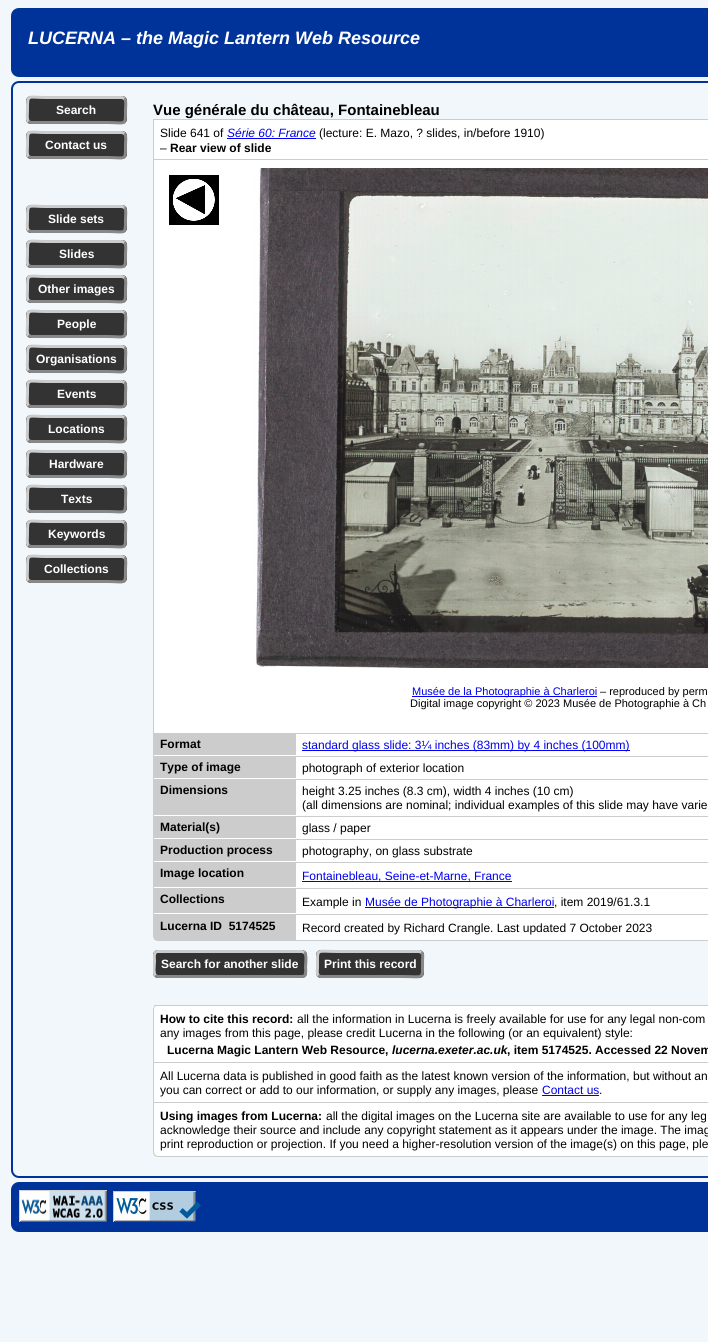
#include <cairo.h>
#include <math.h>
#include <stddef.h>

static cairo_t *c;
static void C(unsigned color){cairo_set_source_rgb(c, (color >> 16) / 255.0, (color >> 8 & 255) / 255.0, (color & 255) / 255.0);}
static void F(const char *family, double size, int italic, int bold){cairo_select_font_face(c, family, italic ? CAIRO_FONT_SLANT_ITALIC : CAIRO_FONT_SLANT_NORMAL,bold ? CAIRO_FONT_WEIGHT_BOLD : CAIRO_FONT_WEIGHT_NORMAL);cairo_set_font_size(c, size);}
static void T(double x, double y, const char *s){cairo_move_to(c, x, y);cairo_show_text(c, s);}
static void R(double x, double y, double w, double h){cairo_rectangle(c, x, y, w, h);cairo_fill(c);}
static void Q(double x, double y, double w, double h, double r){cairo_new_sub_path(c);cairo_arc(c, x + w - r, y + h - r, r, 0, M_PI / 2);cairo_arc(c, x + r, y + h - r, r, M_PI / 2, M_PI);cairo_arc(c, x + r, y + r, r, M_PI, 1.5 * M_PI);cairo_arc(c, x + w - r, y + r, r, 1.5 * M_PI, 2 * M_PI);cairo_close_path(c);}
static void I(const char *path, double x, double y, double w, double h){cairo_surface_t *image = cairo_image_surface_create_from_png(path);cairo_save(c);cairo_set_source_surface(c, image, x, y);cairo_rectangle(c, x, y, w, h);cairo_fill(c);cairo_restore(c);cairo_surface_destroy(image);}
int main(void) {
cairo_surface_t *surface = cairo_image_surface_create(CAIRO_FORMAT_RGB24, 708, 1342);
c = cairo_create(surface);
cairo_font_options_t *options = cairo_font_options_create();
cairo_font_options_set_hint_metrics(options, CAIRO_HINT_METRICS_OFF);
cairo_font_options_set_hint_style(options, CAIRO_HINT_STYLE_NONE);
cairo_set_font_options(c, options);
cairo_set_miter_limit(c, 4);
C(0xf1f7fb);
cairo_paint(c);
C(0x003399);
Q(12,9,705,67,7);
cairo_fill_preserve(c);
cairo_stroke(c);
F("Liberation Sans",18,1,1);
C(0xffffff);
T(28,44,"LUCERNA – the Magic Lantern Web Resource");
Q(12,82,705,1095,7);
C(0x003399);
cairo_stroke(c);
C(0x333333);
Q(26,96,101,28,5);
cairo_fill(c);
cairo_new_path(c);
cairo_move_to(c,124.5,98.5);
cairo_curve_to(c,126.5,100.5,125.5,107.5,125.5,110);
cairo_curve_to(c,125.5,126.5,126,122.5,107,122.5);
cairo_line_to(c,31,122.5);
cairo_line_to(c,28.5,121.5);
C(0x888888);
cairo_set_line_width(c,3);
cairo_stroke(c);
cairo_new_path(c);
cairo_move_to(c,28.5,121.5);
cairo_curve_to(c,26.5,119.5,27.5,112.5,27.5,110);
cairo_curve_to(c,27.5,93.5,27,97.5,46,97.5);
cairo_line_to(c,122,97.5);
cairo_line_to(c,124.5,98.5);
C(0xcccccc);
cairo_stroke(c);
F("Liberation Sans",12,0,1);
C(0xffffff);
T(56,114,"Search");
C(0x333333);
Q(26,131,101,28,5);
cairo_fill(c);
cairo_new_path(c);
cairo_move_to(c,124.5,133.5);
cairo_curve_to(c,126.5,135.5,125.5,142.5,125.5,145);
cairo_curve_to(c,125.5,161.5,126,157.5,107,157.5);
cairo_line_to(c,31,157.5);
cairo_line_to(c,28.5,156.5);
C(0x888888);
cairo_stroke(c);
cairo_new_path(c);
cairo_move_to(c,28.5,156.5);
cairo_curve_to(c,26.5,154.5,27.5,147.5,27.5,145);
cairo_curve_to(c,27.5,128.5,27,132.5,46,132.5);
cairo_line_to(c,122,132.5);
cairo_line_to(c,124.5,133.5);
C(0xcccccc);
cairo_stroke(c);
C(0xffffff);
T(45,149,"Contact us");
C(0x333333);
Q(26,205,101,28,5);
cairo_fill(c);
cairo_new_path(c);
cairo_move_to(c,124.5,207.5);
cairo_curve_to(c,126.5,209.5,125.5,216.5,125.5,219);
cairo_curve_to(c,125.5,235.5,126,231.5,107,231.5);
cairo_line_to(c,31,231.5);
cairo_line_to(c,28.5,230.5);
C(0x888888);
cairo_stroke(c);
cairo_new_path(c);
cairo_move_to(c,28.5,230.5);
cairo_curve_to(c,26.5,228.5,27.5,221.5,27.5,219);
cairo_curve_to(c,27.5,202.5,27,206.5,46,206.5);
cairo_line_to(c,122,206.5);
cairo_line_to(c,124.5,207.5);
C(0xcccccc);
cairo_stroke(c);
C(0xffffff);
T(48,223,"Slide sets");
C(0x333333);
Q(26,240,101,28,5);
cairo_fill(c);
cairo_new_path(c);
cairo_move_to(c,124.5,242.5);
cairo_curve_to(c,126.5,244.5,125.5,251.5,125.5,254);
cairo_curve_to(c,125.5,270.5,126,266.5,107,266.5);
cairo_line_to(c,31,266.5);
cairo_line_to(c,28.5,265.5);
C(0x888888);
cairo_stroke(c);
cairo_new_path(c);
cairo_move_to(c,28.5,265.5);
cairo_curve_to(c,26.5,263.5,27.5,256.5,27.5,254);
cairo_curve_to(c,27.5,237.5,27,241.5,46,241.5);
cairo_line_to(c,122,241.5);
cairo_line_to(c,124.5,242.5);
C(0xcccccc);
cairo_stroke(c);
C(0xffffff);
T(59,258,"Slides");
C(0x333333);
Q(26,275,101,28,5);
cairo_fill(c);
cairo_new_path(c);
cairo_move_to(c,124.5,277.5);
cairo_curve_to(c,126.5,279.5,125.5,286.5,125.5,289);
cairo_curve_to(c,125.5,305.5,126,301.5,107,301.5);
cairo_line_to(c,31,301.5);
cairo_line_to(c,28.5,300.5);
C(0x888888);
cairo_stroke(c);
cairo_new_path(c);
cairo_move_to(c,28.5,300.5);
cairo_curve_to(c,26.5,298.5,27.5,291.5,27.5,289);
cairo_curve_to(c,27.5,272.5,27,276.5,46,276.5);
cairo_line_to(c,122,276.5);
cairo_line_to(c,124.5,277.5);
C(0xcccccc);
cairo_stroke(c);
C(0xffffff);
T(38,293,"Other images");
C(0x333333);
Q(26,310,101,28,5);
cairo_fill(c);
cairo_new_path(c);
cairo_move_to(c,124.5,312.5);
cairo_curve_to(c,126.5,314.5,125.5,321.5,125.5,324);
cairo_curve_to(c,125.5,340.5,126,336.5,107,336.5);
cairo_line_to(c,31,336.5);
cairo_line_to(c,28.5,335.5);
C(0x888888);
cairo_stroke(c);
cairo_new_path(c);
cairo_move_to(c,28.5,335.5);
cairo_curve_to(c,26.5,333.5,27.5,326.5,27.5,324);
cairo_curve_to(c,27.5,307.5,27,311.5,46,311.5);
cairo_line_to(c,122,311.5);
cairo_line_to(c,124.5,312.5);
C(0xcccccc);
cairo_stroke(c);
C(0xffffff);
T(57,328,"People");
C(0x333333);
Q(26,345,101,28,5);
cairo_fill(c);
cairo_new_path(c);
cairo_move_to(c,124.5,347.5);
cairo_curve_to(c,126.5,349.5,125.5,356.5,125.5,359);
cairo_curve_to(c,125.5,375.5,126,371.5,107,371.5);
cairo_line_to(c,31,371.5);
cairo_line_to(c,28.5,370.5);
C(0x888888);
cairo_stroke(c);
cairo_new_path(c);
cairo_move_to(c,28.5,370.5);
cairo_curve_to(c,26.5,368.5,27.5,361.5,27.5,359);
cairo_curve_to(c,27.5,342.5,27,346.5,46,346.5);
cairo_line_to(c,122,346.5);
cairo_line_to(c,124.5,347.5);
C(0xcccccc);
cairo_stroke(c);
C(0xffffff);
T(36,363,"Organisations");
C(0x333333);
Q(26,380,101,28,5);
cairo_fill(c);
cairo_new_path(c);
cairo_move_to(c,124.5,382.5);
cairo_curve_to(c,126.5,384.5,125.5,391.5,125.5,394);
cairo_curve_to(c,125.5,410.5,126,406.5,107,406.5);
cairo_line_to(c,31,406.5);
cairo_line_to(c,28.5,405.5);
C(0x888888);
cairo_stroke(c);
cairo_new_path(c);
cairo_move_to(c,28.5,405.5);
cairo_curve_to(c,26.5,403.5,27.5,396.5,27.5,394);
cairo_curve_to(c,27.5,377.5,27,381.5,46,381.5);
cairo_line_to(c,122,381.5);
cairo_line_to(c,124.5,382.5);
C(0xcccccc);
cairo_stroke(c);
C(0xffffff);
T(57,398,"Events");
C(0x333333);
Q(26,415,101,28,5);
cairo_fill(c);
cairo_new_path(c);
cairo_move_to(c,124.5,417.5);
cairo_curve_to(c,126.5,419.5,125.5,426.5,125.5,429);
cairo_curve_to(c,125.5,445.5,126,441.5,107,441.5);
cairo_line_to(c,31,441.5);
cairo_line_to(c,28.5,440.5);
C(0x888888);
cairo_stroke(c);
cairo_new_path(c);
cairo_move_to(c,28.5,440.5);
cairo_curve_to(c,26.5,438.5,27.5,431.5,27.5,429);
cairo_curve_to(c,27.5,412.5,27,416.5,46,416.5);
cairo_line_to(c,122,416.5);
cairo_line_to(c,124.5,417.5);
C(0xcccccc);
cairo_stroke(c);
C(0xffffff);
T(48,433,"Locations");
C(0x333333);
Q(26,450,101,28,5);
cairo_fill(c);
cairo_new_path(c);
cairo_move_to(c,124.5,452.5);
cairo_curve_to(c,126.5,454.5,125.5,461.5,125.5,464);
cairo_curve_to(c,125.5,480.5,126,476.5,107,476.5);
cairo_line_to(c,31,476.5);
cairo_line_to(c,28.5,475.5);
C(0x888888);
cairo_stroke(c);
cairo_new_path(c);
cairo_move_to(c,28.5,475.5);
cairo_curve_to(c,26.5,473.5,27.5,466.5,27.5,464);
cairo_curve_to(c,27.5,447.5,27,451.5,46,451.5);
cairo_line_to(c,122,451.5);
cairo_line_to(c,124.5,452.5);
C(0xcccccc);
cairo_stroke(c);
C(0xffffff);
T(49,468,"Hardware");
C(0x333333);
Q(26,485,101,28,5);
cairo_fill(c);
cairo_new_path(c);
cairo_move_to(c,124.5,487.5);
cairo_curve_to(c,126.5,489.5,125.5,496.5,125.5,499);
cairo_curve_to(c,125.5,515.5,126,511.5,107,511.5);
cairo_line_to(c,31,511.5);
cairo_line_to(c,28.5,510.5);
C(0x888888);
cairo_stroke(c);
cairo_new_path(c);
cairo_move_to(c,28.5,510.5);
cairo_curve_to(c,26.5,508.5,27.5,501.5,27.5,499);
cairo_curve_to(c,27.5,482.5,27,486.5,46,486.5);
cairo_line_to(c,122,486.5);
cairo_line_to(c,124.5,487.5);
C(0xcccccc);
cairo_stroke(c);
C(0xffffff);
T(61,503,"Texts");
C(0x333333);
Q(26,520,101,28,5);
cairo_fill(c);
cairo_new_path(c);
cairo_move_to(c,124.5,522.5);
cairo_curve_to(c,126.5,524.5,125.5,531.5,125.5,534);
cairo_curve_to(c,125.5,550.5,126,546.5,107,546.5);
cairo_line_to(c,31,546.5);
cairo_line_to(c,28.5,545.5);
C(0x888888);
cairo_stroke(c);
cairo_new_path(c);
cairo_move_to(c,28.5,545.5);
cairo_curve_to(c,26.5,543.5,27.5,536.5,27.5,534);
cairo_curve_to(c,27.5,517.5,27,521.5,46,521.5);
cairo_line_to(c,122,521.5);
cairo_line_to(c,124.5,522.5);
C(0xcccccc);
cairo_stroke(c);
C(0xffffff);
T(48,538,"Keywords");
C(0x333333);
Q(26,555,101,28,5);
cairo_fill(c);
cairo_new_path(c);
cairo_move_to(c,124.5,557.5);
cairo_curve_to(c,126.5,559.5,125.5,566.5,125.5,569);
cairo_curve_to(c,125.5,585.5,126,581.5,107,581.5);
cairo_line_to(c,31,581.5);
cairo_line_to(c,28.5,580.5);
C(0x888888);
cairo_stroke(c);
cairo_new_path(c);
cairo_move_to(c,28.5,580.5);
cairo_curve_to(c,26.5,578.5,27.5,571.5,27.5,569);
cairo_curve_to(c,27.5,552.5,27,556.5,46,556.5);
cairo_line_to(c,122,556.5);
cairo_line_to(c,124.5,557.5);
C(0xcccccc);
cairo_stroke(c);
C(0xffffff);
T(44,573,"Collections");
F("Liberation Sans",15,0,1);
C(0x000000);
T(153,115,"Vue générale du château, Fontainebleau");
C(0xffffff);
R(154,120,554,39);
C(0xcccccc);
cairo_set_fill_rule(c,CAIRO_FILL_RULE_EVEN_ODD);
cairo_new_path(c);
cairo_move_to(c,153,119);
cairo_line_to(c,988,119);
cairo_curve_to(c,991,119,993,121,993,124);
cairo_line_to(c,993,159);
cairo_line_to(c,153,159);
cairo_close_path(c);
cairo_move_to(c,154,120);
cairo_line_to(c,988,120);
cairo_curve_to(c,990,120,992,122,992,124);
cairo_line_to(c,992,159);
cairo_line_to(c,154,159);
cairo_close_path(c);
cairo_fill(c);
F("Liberation Sans",12,0,0);
C(0x000000);
T(160,137,"Slide 641 of");
F("Liberation Sans",12,1,0);
C(0x0000ee);
T(227,137,"Série 60: France");
R(227,138,89,1);
F("Liberation Sans",12,0,0);
C(0x000000);
T(319,137,"(lecture: E. Mazo, ? slides, in/before 1910)");
T(160,152,"–");
F("Liberation Sans",12,0,1);
T(170,152,"Rear view of slide");
C(0xffffff);
R(154,160,554,573);
C(0xcccccc);
R(153,159,555,1);
R(153,159,1,755);
I("1.png",169,175,50,50);
I("2.png",252,168,456,500);
C(0x0000ee);
R(412,696,185,1);
F("Liberation Sans",11,0,0);
T(412,695,"Musée de la Photographie à Charleroi");
C(0x000000);
T(600,695,"– reproduced by perm");
T(410,707,"Digital image copyright © 2023 Musée de Photographie à Ch");
C(0xffffff);
R(296,734,412,180);
C(0xcccccc);
R(154,733,142,22);
C(0xffffff);
R(154,755,142,1);
F("Liberation Sans",12,0,1);
C(0x000000);
T(160,748,"Format");
C(0xcccccc);
R(296,733,412,1);
C(0x0000ee);
R(302,750,328,1);
F("Liberation Sans",12,0,0);
T(302,749,"standard glass slide: 3¼ inches (83mm) by 4 inches (100mm)");
C(0xcccccc);
R(154,756,142,22);
C(0xffffff);
R(154,778,142,1);
F("Liberation Sans",12,0,1);
C(0x000000);
T(160,771,"Type of image");
C(0xcccccc);
R(296,756,412,1);
F("Liberation Sans",12,0,0);
C(0x000000);
T(302,772,"photograph of exterior location");
C(0xcccccc);
R(154,779,142,36);
C(0xffffff);
R(154,815,142,1);
F("Liberation Sans",12,0,1);
C(0x000000);
T(160,794,"Dimensions");
C(0xcccccc);
R(296,779,412,1);
F("Liberation Sans",12,0,0);
C(0x000000);
T(302,795,"height 3.25 inches (8.3 cm), width 4 inches (10 cm)");
T(302,809,"(all dimensions are nominal; individual examples of this slide may have varie");
C(0xcccccc);
R(154,816,142,22);
C(0xffffff);
R(154,838,142,1);
F("Liberation Sans",12,0,1);
C(0x000000);
T(160,831,"Material(s)");
C(0xcccccc);
R(296,816,412,1);
F("Liberation Sans",12,0,0);
C(0x000000);
T(302,832,"glass / paper");
C(0xcccccc);
R(154,839,142,22);
C(0xffffff);
R(154,861,142,1);
F("Liberation Sans",12,0,1);
C(0x000000);
T(160,854,"Production process");
C(0xcccccc);
R(296,839,412,1);
F("Liberation Sans",12,0,0);
C(0x000000);
T(302,855,"photography, on glass substrate");
C(0xcccccc);
R(154,862,142,25);
C(0xffffff);
R(154,887,142,1);
F("Liberation Sans",12,0,1);
C(0x000000);
T(160,877,"Image location");
C(0xcccccc);
R(296,862,412,1);
C(0x0000ee);
R(302,881,210,1);
F("Liberation Sans",12,0,0);
T(302,880,"Fontainebleau, Seine-et-Marne, France");
C(0xcccccc);
R(154,888,142,25);
C(0xffffff);
R(154,913,142,1);
F("Liberation Sans",12,0,1);
C(0x000000);
T(160,903,"Collections");
C(0xcccccc);
R(296,888,412,1);
F("Liberation Sans",12,0,0);
C(0x000000);
T(302,906,"Example in");
C(0x0000ee);
R(365,907,189,1);
T(365,906,"Musée de Photographie à Charleroi");
C(0x000000);
T(554,906,", item 2019/61.3.1");
C(0xffffff);
cairo_new_path(c);
cairo_move_to(c,153.5,914.5);
cairo_line_to(c,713.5,914.5);
cairo_line_to(c,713.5,936);
cairo_curve_to(c,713.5,938.5,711.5,940.5,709,940.5);
cairo_line_to(c,158,940.5);
cairo_curve_to(c,155.5,940.5,153.5,938.5,153.5,936);
cairo_close_path(c);
cairo_fill_preserve(c);
C(0xcccccc);
cairo_set_line_width(c,1);
cairo_stroke(c);
R(154,915,142,25);
F("Liberation Sans",12,0,1);
C(0x000000);
T(160,930,"Lucerna ID  5174525");
F("Liberation Sans",12,0,0);
T(302,932,"Record created by Richard Crangle. Last updated 7 October 2023");
C(0x333333);
Q(153,950,154,28,5);
cairo_fill(c);
cairo_new_path(c);
cairo_move_to(c,304.5,952.5);
cairo_curve_to(c,307,955,305.5,964,305.5,967);
cairo_curve_to(c,305.5,969.5,307,976.5,302,976.5);
cairo_line_to(c,158,976.5);
cairo_line_to(c,155.5,975.5);
C(0x888888);
cairo_set_line_width(c,3);
cairo_stroke(c);
cairo_save(c);
cairo_set_fill_rule(c,CAIRO_FILL_RULE_WINDING);
cairo_rectangle(c,153,941,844,50);
cairo_clip(c);
cairo_new_path(c);
cairo_move_to(c,155.5,975.5);
cairo_curve_to(c,153,973,154.5,964,154.5,961);
cairo_curve_to(c,154.5,958.5,153,951.5,158,951.5);
cairo_line_to(c,302,951.5);
cairo_line_to(c,304.5,952.5);
C(0xcccccc);
cairo_stroke(c);
cairo_restore(c);
F("Liberation Sans",12,0,1);
C(0xffffff);
T(161,968,"Search for another slide");
C(0x333333);
Q(316,950,108,28,5);
cairo_fill(c);
cairo_new_path(c);
cairo_move_to(c,421.5,952.5);
cairo_curve_to(c,423.5,954.5,422.5,958.5,422.5,961);
cairo_curve_to(c,422.5,980.5,424.5,976.5,402.5,976.5);
cairo_line_to(c,320.5,976.5);
cairo_line_to(c,318.5,975.5);
C(0x888888);
cairo_stroke(c);
cairo_new_path(c);
cairo_move_to(c,318.5,975.5);
cairo_curve_to(c,316.5,973.5,317.5,969.5,317.5,967);
cairo_curve_to(c,317.5,947.5,315.5,951.5,337.5,951.5);
cairo_line_to(c,419.5,951.5);
cairo_line_to(c,421.5,952.5);
C(0xcccccc);
cairo_stroke(c);
C(0xffffff);
T(324,968,"Print this record");
Q(153,1005,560,152,5);
cairo_fill(c);
C(0xcccccc);
cairo_new_path(c);
cairo_move_to(c,158,1005);
cairo_line_to(c,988,1005);
cairo_curve_to(c,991,1005,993,1007,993,1010);
cairo_line_to(c,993,1152);
cairo_curve_to(c,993,1155,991,1157,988,1157);
cairo_line_to(c,158,1157);
cairo_curve_to(c,155,1157,153,1155,153,1152);
cairo_line_to(c,153,1010);
cairo_curve_to(c,153,1007,155,1005,158,1005);
cairo_close_path(c);
cairo_move_to(c,158,1005);
cairo_line_to(c,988,1005);
cairo_curve_to(c,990,1005,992,1007,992,1010);
cairo_line_to(c,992,1152);
cairo_curve_to(c,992,1154,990,1156,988,1156);
cairo_line_to(c,158,1156);
cairo_curve_to(c,156,1156,154,1154,154,1152);
cairo_line_to(c,154,1010);
cairo_curve_to(c,154,1007,156,1005,158,1005);
cairo_close_path(c);
cairo_fill(c);
R(154,1005,554,1);
C(0x000000);
T(160,1023,"How to cite this record:");
F("Liberation Sans",12,0,0);
T(297,1023,"all the information in Lucerna is freely available for use for any legal non-com");
T(160,1037,"any images from this page, please credit Lucerna in the following (or an equivalent) style:");
F("Liberation Sans",12,0,1);
T(167,1054,"Lucerna Magic Lantern Web Resource,");
F("Liberation Sans",12,1,1);
T(392,1054,"lucerna.exeter.ac.uk");
F("Liberation Sans",12,0,1);
T(507,1054,", item 5174525. Accessed 22 Novem");
C(0xcccccc);
R(154,1062,554,1);
F("Liberation Sans",12,0,0);
C(0x000000);
T(160,1080,"All Lucerna data is published in good faith as the latest known version of the information, but without an");
T(160,1094,"you can correct or add to our information, or supply any images, please");
C(0x0000ee);
T(542,1094,"Contact us");
R(542,1095,57,1);
C(0x000000);
T(599,1094,".");
C(0xcccccc);
R(154,1102,554,1);
F("Liberation Sans",12,0,1);
C(0x000000);
T(160,1120,"Using images from Lucerna:");
F("Liberation Sans",12,0,0);
T(326,1120,"all the digital images on the Lucerna site are available to use for any leg");
T(160,1134,"acknowledge their source and include any copyright statement as it appears under the image. The imag");
T(160,1148,"print reproduction or projection. If you need a higher-resolution version of the image(s) on this page, ple");
C(0x003399);
Q(12,1183,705,48,7);
cairo_fill_preserve(c);
cairo_set_line_width(c,2);
cairo_stroke(c);
I("3.png",19,1190,88,32);
I("4.png",113,1191,88,31);
cairo_surface_write_to_png(surface, "o.png");
cairo_font_options_destroy(options);
cairo_destroy(c);
cairo_surface_destroy(surface);
return 0;
}
